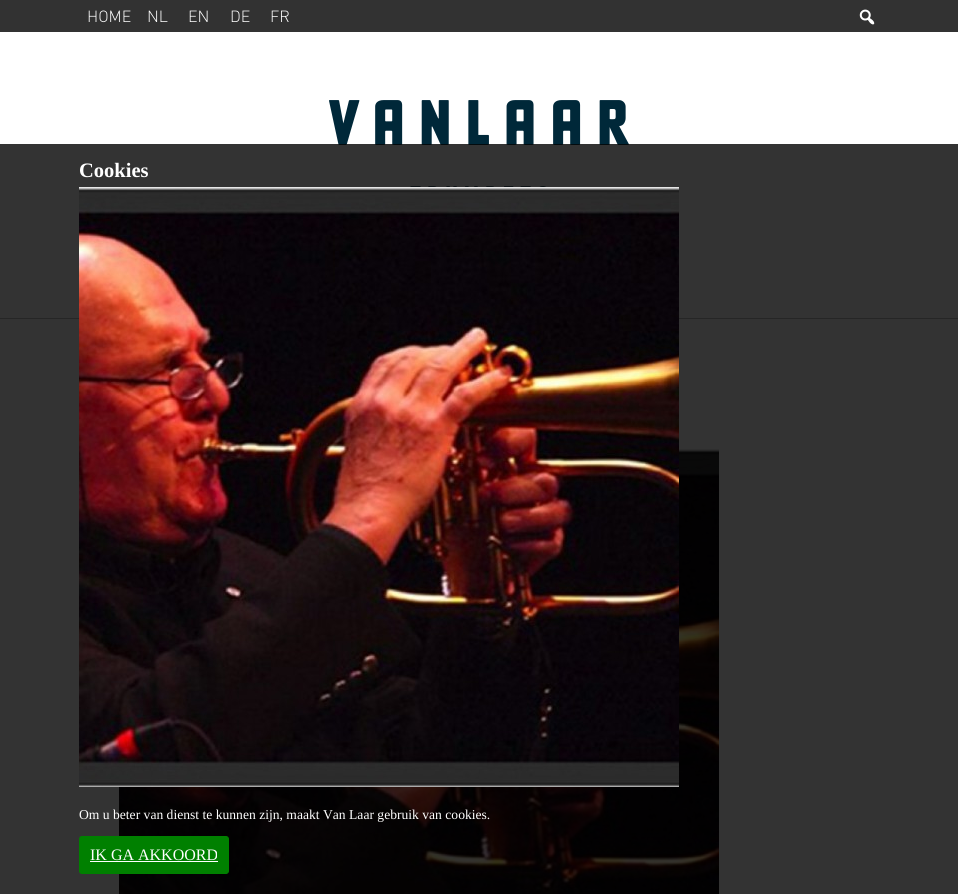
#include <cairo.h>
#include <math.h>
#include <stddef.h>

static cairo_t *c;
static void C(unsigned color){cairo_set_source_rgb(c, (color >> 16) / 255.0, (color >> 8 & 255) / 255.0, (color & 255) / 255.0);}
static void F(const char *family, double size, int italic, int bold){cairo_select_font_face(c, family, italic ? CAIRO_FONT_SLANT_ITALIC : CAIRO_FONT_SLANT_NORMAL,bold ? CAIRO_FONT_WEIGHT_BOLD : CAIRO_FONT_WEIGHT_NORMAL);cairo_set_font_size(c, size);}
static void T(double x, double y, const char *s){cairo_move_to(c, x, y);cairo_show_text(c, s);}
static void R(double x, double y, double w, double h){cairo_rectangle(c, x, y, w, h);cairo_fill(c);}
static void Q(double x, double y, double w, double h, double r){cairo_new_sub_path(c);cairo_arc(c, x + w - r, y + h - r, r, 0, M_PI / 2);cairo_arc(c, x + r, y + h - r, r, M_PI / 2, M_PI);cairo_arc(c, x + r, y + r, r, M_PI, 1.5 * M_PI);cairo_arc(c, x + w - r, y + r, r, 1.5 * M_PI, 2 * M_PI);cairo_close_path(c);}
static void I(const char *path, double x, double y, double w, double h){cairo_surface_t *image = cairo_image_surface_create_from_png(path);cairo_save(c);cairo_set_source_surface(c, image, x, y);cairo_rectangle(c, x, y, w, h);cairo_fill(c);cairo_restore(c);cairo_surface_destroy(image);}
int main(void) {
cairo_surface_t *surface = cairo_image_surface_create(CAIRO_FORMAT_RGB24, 958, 894);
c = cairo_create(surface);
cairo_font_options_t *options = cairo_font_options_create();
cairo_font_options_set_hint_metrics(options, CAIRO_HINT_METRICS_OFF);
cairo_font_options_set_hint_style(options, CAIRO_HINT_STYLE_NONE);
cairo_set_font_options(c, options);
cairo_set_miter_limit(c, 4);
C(0xffffff);
cairo_paint(c);
C(0x323232);
R(0,0,958,32);
F("DIN Light",16,0,0);
C(0xffffff);
T(87,22,"HOME");
T(147,22,"NL");
T(188,22,"EN");
T(230,22,"DE");
T(270,22,"FR");
I("1.png",859,9,16,16);
I("2.png",329,100,300,87);
C(0xc0c0c0);
R(0,318,958,1);
I("3.png",119,449,600,445);
cairo_set_source_rgba(c,0,0,0,0.8);
R(0,144,958,750);
F("Liberation Serif",20.5,0,1);
C(0xffffff);
T(79,177,"Cookies");
I("4.png",79,187,600,600);
F("Liberation Serif",13.6,0,0);
T(79,819,"Om u beter van dienst te kunnen zijn, maakt Van Laar gebruik van cookies.");
C(0x008000);
Q(79.5,836.5,149,37,2.5);
cairo_fill_preserve(c);
cairo_set_line_width(c,1);
cairo_stroke(c);
F("Liberation Serif",16,0,0);
C(0xffffff);
T(90,860,"IK GA AKKOORD");
R(90,861,128,1);
cairo_surface_write_to_png(surface, "o.png");
cairo_font_options_destroy(options);
cairo_destroy(c);
cairo_surface_destroy(surface);
return 0;
}
